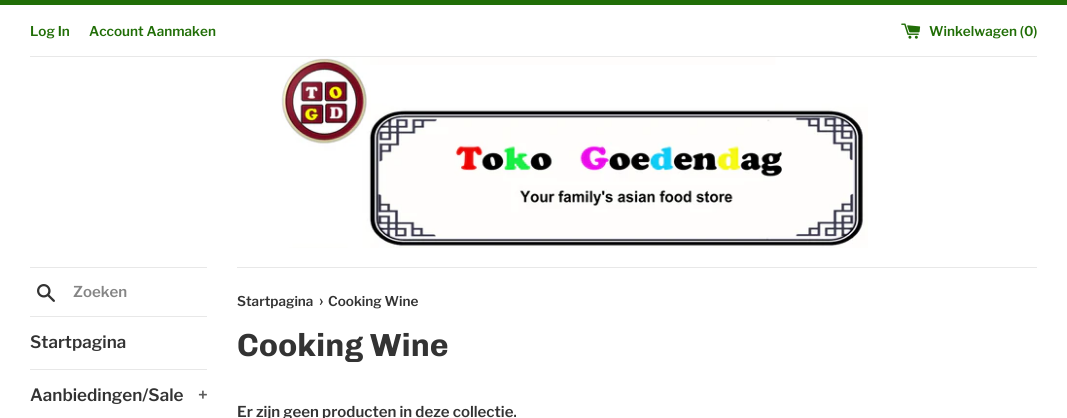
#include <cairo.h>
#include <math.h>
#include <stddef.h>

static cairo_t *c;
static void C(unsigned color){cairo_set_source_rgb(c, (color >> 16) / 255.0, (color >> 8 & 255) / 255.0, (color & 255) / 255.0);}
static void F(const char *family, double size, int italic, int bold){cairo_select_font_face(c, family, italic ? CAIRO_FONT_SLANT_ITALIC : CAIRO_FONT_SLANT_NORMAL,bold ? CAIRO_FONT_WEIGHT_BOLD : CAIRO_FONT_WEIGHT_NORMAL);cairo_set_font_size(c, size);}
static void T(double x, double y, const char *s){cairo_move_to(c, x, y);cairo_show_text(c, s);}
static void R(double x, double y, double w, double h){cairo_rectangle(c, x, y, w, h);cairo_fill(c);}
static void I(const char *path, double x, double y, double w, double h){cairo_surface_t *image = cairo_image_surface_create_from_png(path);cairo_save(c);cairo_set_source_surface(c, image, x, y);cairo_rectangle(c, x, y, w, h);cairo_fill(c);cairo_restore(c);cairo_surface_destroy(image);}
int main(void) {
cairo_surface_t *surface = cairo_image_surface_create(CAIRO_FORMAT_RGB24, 1067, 418);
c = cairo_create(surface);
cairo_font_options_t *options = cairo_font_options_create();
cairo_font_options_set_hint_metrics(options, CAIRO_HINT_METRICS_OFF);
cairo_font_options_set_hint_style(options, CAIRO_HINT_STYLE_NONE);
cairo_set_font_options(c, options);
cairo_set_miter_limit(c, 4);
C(0xffffff);
cairo_paint(c);
C(0x216e07);
R(0,0,1067,5);
F("Libre Franklin SemiBold",13.5,0,0);
T(30,36,"Log In");
T(89,36,"Account Aanmaken");
I("1.png",901,23,20,16);
T(929,36,"Winkelwagen (0)");
C(0xe8e8e8);
R(30,56,1007,1);
I("2.png",281,57,587,191);
R(30,267,177,1);
R(30,316,177,1);
I("3.png",37,284,18,18);
F("Libre Franklin SemiBold",15,0,0);
C(0x858585);
T(73,297,"Zoeken");
C(0xe8e8e8);
R(30,369,177,1);
F("Libre Franklin SemiBold",17,0,0);
C(0x333333);
T(30,348,"Startpagina");
T(30,401,"Aanbiedingen/Sale");
C(0x5c5c5c);
T(198,401,"+");
C(0xe8e8e8);
R(237,267,800,1);
F("Libre Franklin SemiBold",13.5,0,0);
C(0x333333);
T(237,306,"Startpagina");
F("Libre Franklin SemiBold",16,0,0);
T(319,306,"›");
F("Libre Franklin SemiBold",13.5,0,0);
T(328,306,"Cooking Wine");
F("Chivo",32,0,1);
T(237,356,"Cooking Wine");
F("Libre Franklin SemiBold",15,0,0);
T(237,417,"Er zijn geen producten in deze collectie.");
cairo_surface_write_to_png(surface, "o.png");
cairo_font_options_destroy(options);
cairo_destroy(c);
cairo_surface_destroy(surface);
return 0;
}
